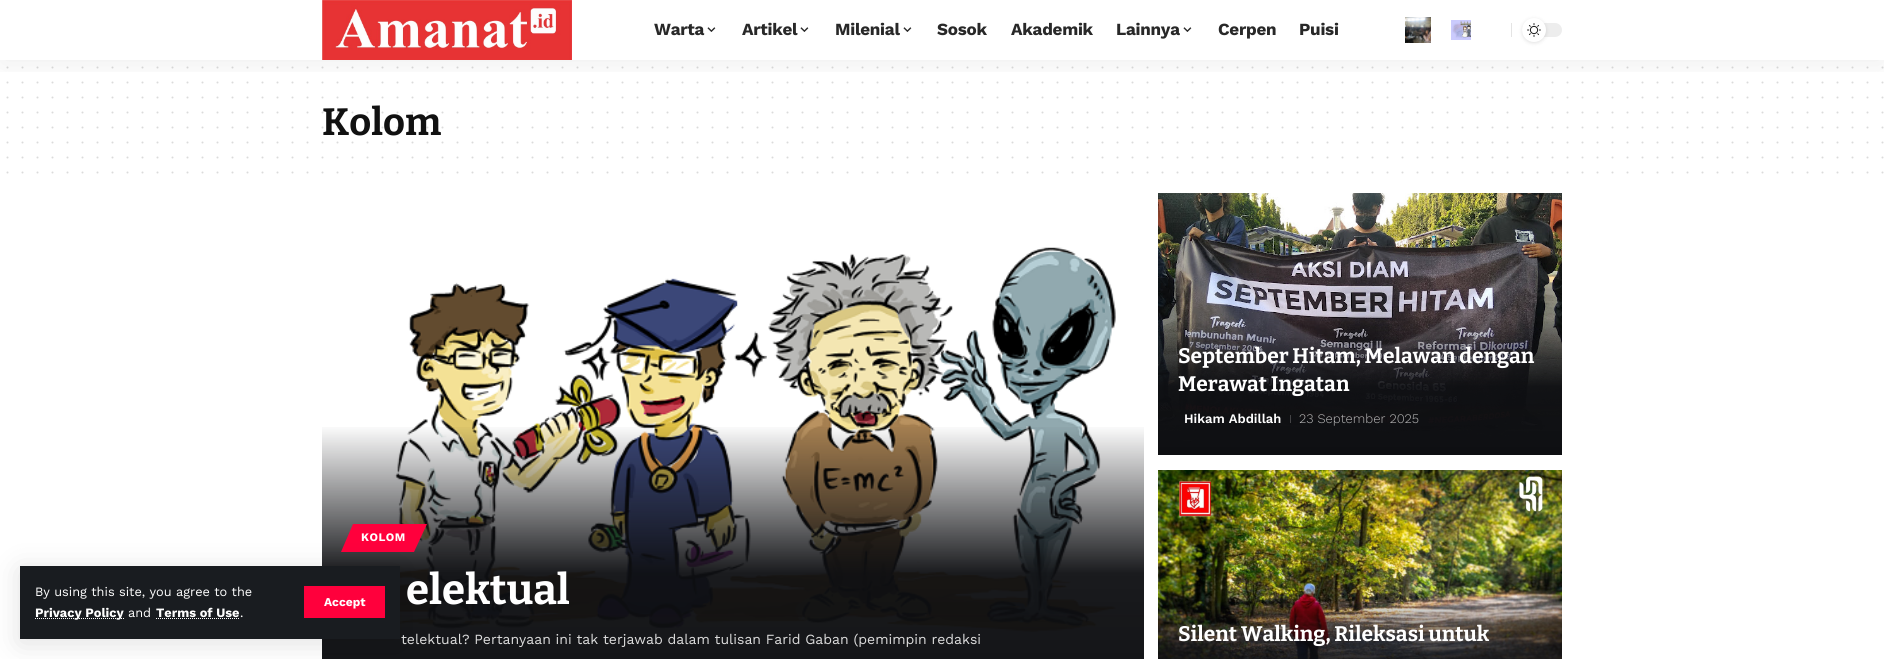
#include <cairo.h>
#include <math.h>
#include <stddef.h>

static cairo_t *c;
static void C(unsigned color){cairo_set_source_rgb(c, (color >> 16) / 255.0, (color >> 8 & 255) / 255.0, (color & 255) / 255.0);}
static void F(const char *family, double size, int italic, int bold){cairo_select_font_face(c, family, italic ? CAIRO_FONT_SLANT_ITALIC : CAIRO_FONT_SLANT_NORMAL,bold ? CAIRO_FONT_WEIGHT_BOLD : CAIRO_FONT_WEIGHT_NORMAL);cairo_set_font_size(c, size);}
static void T(double x, double y, const char *s){cairo_move_to(c, x, y);cairo_show_text(c, s);}
static void L(double x, double y, const char *s, double letter, double word){cairo_move_to(c, x, y);while (*s) {char ch[5] = {0};int n = 0;do ch[n++] = *s++; while ((*s & 0xC0) == 0x80);cairo_show_text(c, ch);cairo_rel_move_to(c, letter + word * (*ch == ' '), 0);}}
static void R(double x, double y, double w, double h){cairo_rectangle(c, x, y, w, h);cairo_fill(c);}
static void Q(double x, double y, double w, double h, double r){cairo_new_sub_path(c);cairo_arc(c, x + w - r, y + h - r, r, 0, M_PI / 2);cairo_arc(c, x + r, y + h - r, r, M_PI / 2, M_PI);cairo_arc(c, x + r, y + r, r, M_PI, 1.5 * M_PI);cairo_arc(c, x + w - r, y + r, r, 1.5 * M_PI, 2 * M_PI);cairo_close_path(c);}
static void S(double x, double y, double w, double h, double r, double blur, double alpha){cairo_push_group_with_content(c, CAIRO_CONTENT_ALPHA);cairo_set_operator(c, CAIRO_OPERATOR_SOURCE);for (int i = 15; i >= -15 && fmin(w, h) + blur * i / 3 > 0; i -= 2) {double e = blur * i / 6;cairo_set_source_rgba(c, 0, 0, 0, alpha * erfc((i - 1) / 8.5) / 2);Q(x - e, y - e, w + 2 * e, h + 2 * e, fmax(0, fmin(r + e + blur * .6, fmin(w, h) / 2 + e)));cairo_fill(c);}cairo_pattern_t *soft = cairo_pop_group(c);cairo_mask(c, soft);cairo_pattern_destroy(soft);}
static void I(const char *path, double x, double y, double w, double h){cairo_surface_t *image = cairo_image_surface_create_from_png(path);cairo_save(c);cairo_set_source_surface(c, image, x, y);cairo_rectangle(c, x, y, w, h);cairo_fill(c);cairo_restore(c);cairo_surface_destroy(image);}
int main(void) {
cairo_surface_t *surface = cairo_image_surface_create(CAIRO_FORMAT_RGB24, 1884, 659);
c = cairo_create(surface);
cairo_font_options_t *options = cairo_font_options_create();
cairo_font_options_set_hint_metrics(options, CAIRO_HINT_METRICS_OFF);
cairo_font_options_set_hint_style(options, CAIRO_HINT_STYLE_NONE);
cairo_set_font_options(c, options);
cairo_set_miter_limit(c, 4);
cairo_pattern_t *gradient;
C(0xffffff);
cairo_paint(c);
cairo_new_path(c);
cairo_move_to(c,7.5,67.5);
cairo_line_to(c,1882.7,67.5);
C(0xdbdbdb);
cairo_set_line_cap(c,CAIRO_LINE_CAP_ROUND);
cairo_set_dash(c,(double[]){0,15},2,0);
cairo_stroke(c);
cairo_new_path(c);
cairo_move_to(c,7.5,82.5);
cairo_line_to(c,1882.7,82.5);
cairo_stroke(c);
cairo_new_path(c);
cairo_move_to(c,7.5,97.5);
cairo_line_to(c,1882.7,97.5);
cairo_stroke(c);
cairo_save(c);
cairo_rectangle(c,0,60,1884,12);
cairo_clip(c);
C(0x000000);
S(0,4,1884,60,0,15,.07);
cairo_restore(c);
I("1.png",322,0,250,60);
F("Work Sans",17,0,1);
C(0x282828);
L(654,35,"Warta",-.25,0);
I("2.png",707,27,9,5);
L(742,35,"Artikel",-.25,0);
I("2.png",800,27,9,5);
L(835,35,"Milenial",-.25,0);
I("2.png",903,27,9,5);
L(937,35,"Sosok",-.25,0);
L(1011,35,"Akademik",-.25,0);
L(1116,35,"Lainnya",-.25,0);
I("2.png",1183,27,9,5);
L(1218,35,"Cerpen",-.25,0);
L(1299,35,"Puisi",-.25,0);
I("3.png",1405,17,26,26);
I("4.png",1451,20,20,20);
C(0xe4e4e4);
R(1511,23,1,14);
C(0xededed);
Q(1522,23,40,14,7);
cairo_fill(c);
C(0x000000);
S(1522,19,24,24,12,2,.12);
C(0xffffff);
cairo_arc(c,1534,30,12,0,2 * M_PI);
cairo_fill(c);
I("5.png",1527,23,14,14);
I("6.png",350,247,767,385);
gradient = cairo_pattern_create_linear(733,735,733,424);
cairo_pattern_add_color_stop_rgba(gradient,0,0.055,0.059,0.071,1);
cairo_pattern_add_color_stop_rgba(gradient,.52,0.055,0.059,0.071,.95);
cairo_pattern_add_color_stop_rgba(gradient,1,0.055,0.059,0.071,0);
cairo_set_source(c,gradient);
cairo_pattern_destroy(gradient);
R(322,427,822,232);
C(0xff003c);
cairo_new_path(c);
cairo_move_to(c,353,524);
cairo_line_to(c,427,524);
cairo_line_to(c,414,552);
cairo_line_to(c,341,552);
cairo_close_path(c);
cairo_fill(c);
C(0x000000);
S(20,570,380,73,0,15,.12);
C(0x191c20);
R(20,566,380,73);
F("Work Sans",12.75,0,0);
C(0xffffff);
T(35,596,"By using this site, you agree to the");
cairo_new_path(c);
cairo_move_to(c,35,618.5);
cairo_line_to(c,124,618.5);
cairo_set_line_width(c,1);
cairo_set_line_cap(c,CAIRO_LINE_CAP_BUTT);
cairo_set_dash(c,(double[]){1,1},2,0);
cairo_stroke(c);
F("Work Sans",12.75,0,1);
T(35,617,"Privacy Policy");
F("Work Sans",12.75,0,0);
T(128,617,"and");
F("Work Sans",12.75,0,1);
T(156,617,"Terms of Use");
cairo_new_path(c);
cairo_move_to(c,156,618.5);
cairo_line_to(c,240,618.5);
cairo_stroke(c);
F("Work Sans",12.75,0,0);
T(240,617,".");
C(0xff003c);
R(304,586,81,32);
F("Work Sans",12,0,1);
C(0xffffff);
T(324,606,"Accept");
cairo_new_path(c);
cairo_move_to(c,7.5,112.5);
cairo_line_to(c,1882.7,112.5);
C(0xdbdbdb);
cairo_set_line_width(c,2);
cairo_set_line_cap(c,CAIRO_LINE_CAP_ROUND);
cairo_set_dash(c,(double[]){0,15},2,0);
cairo_stroke(c);
cairo_new_path(c);
cairo_move_to(c,7.5,127.5);
cairo_line_to(c,1882.7,127.5);
cairo_stroke(c);
cairo_new_path(c);
cairo_move_to(c,7.5,142.5);
cairo_line_to(c,1882.7,142.5);
cairo_stroke(c);
cairo_new_path(c);
cairo_move_to(c,7.5,157.5);
cairo_line_to(c,1882.7,157.5);
cairo_stroke(c);
cairo_new_path(c);
cairo_move_to(c,7.5,172.5);
cairo_line_to(c,1882.7,172.5);
cairo_stroke(c);
F("Bitter",38,0,1);
C(0x111111);
T(322,135,"Kolom");
F("Work Sans",11.5,0,1);
C(0xffffff);
L(361,541,"KOLOM",.5,0);
F("Bitter",42,0,1);
T(406,604,"elektual");
F("Work Sans",14,0,0);
C(0xdddddd);
T(401,644,"telektual? Pertanyaan ini tak terjawab dalam tulisan Farid Gaban (pemimpin redaksi");
I("7.png",1158,193,404,262);
F("Bitter",21,0,1);
C(0xffffff);
T(1178,363,"September Hitam, Melawan dengan");
T(1178,391,"Merawat Ingatan");
F("Work Sans SemiBold",13,0,0);
T(1184,423,"Hikam Abdillah");
C(0x434345);
R(1290,415,1,8);
F("Work Sans Light",13,0,0);
C(0xbbbbbb);
T(1299,423,"23 September 2025");
I("8.png",1158,470,404,189);
F("Bitter",21,0,1);
C(0xffffff);
T(1178,641,"Silent Walking, Rileksasi untuk");
cairo_surface_write_to_png(surface, "o.png");
cairo_font_options_destroy(options);
cairo_destroy(c);
cairo_surface_destroy(surface);
return 0;
}
